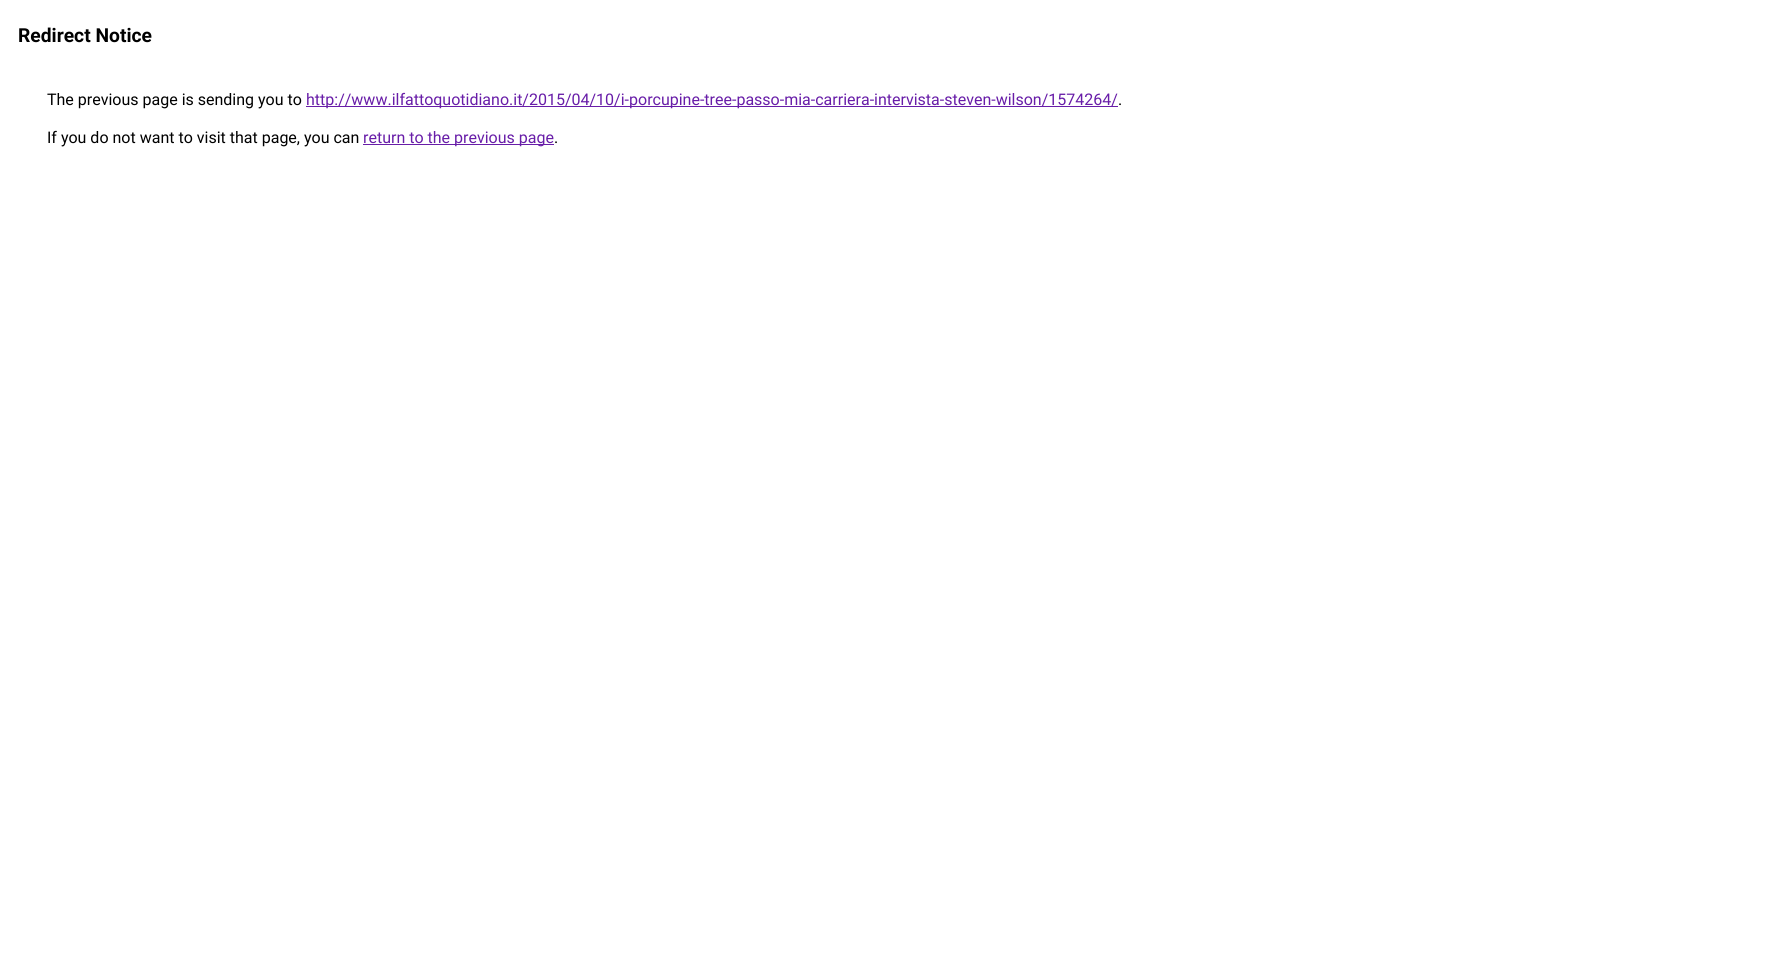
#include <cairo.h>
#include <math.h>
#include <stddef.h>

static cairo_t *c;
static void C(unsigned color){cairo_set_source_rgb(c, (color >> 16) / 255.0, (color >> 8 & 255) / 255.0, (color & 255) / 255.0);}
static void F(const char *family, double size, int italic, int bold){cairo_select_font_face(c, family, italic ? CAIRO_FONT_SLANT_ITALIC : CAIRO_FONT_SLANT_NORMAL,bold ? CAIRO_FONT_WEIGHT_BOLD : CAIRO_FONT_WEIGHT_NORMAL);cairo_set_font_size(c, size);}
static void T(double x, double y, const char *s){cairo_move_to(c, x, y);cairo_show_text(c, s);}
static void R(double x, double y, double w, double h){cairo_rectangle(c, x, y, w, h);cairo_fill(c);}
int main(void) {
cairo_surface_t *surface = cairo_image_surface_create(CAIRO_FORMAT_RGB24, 1771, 979);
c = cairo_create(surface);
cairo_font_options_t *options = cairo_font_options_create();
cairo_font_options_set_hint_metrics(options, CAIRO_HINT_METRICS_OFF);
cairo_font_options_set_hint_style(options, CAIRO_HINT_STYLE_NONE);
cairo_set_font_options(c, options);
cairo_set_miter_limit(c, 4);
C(0xffffff);
cairo_paint(c);
F("Roboto",19.25,0,1);
C(0x000000);
T(18,42,"Redirect Notice");
F("Roboto",16,0,0);
T(47,105,"The previous page is sending you to");
C(0x681da8);
R(306,106,812,1);
T(306,105,"http://www.ilfattoquotidiano.it/2015/04/10/i-porcupine-tree-passo-mia-carriera-intervista-steven-wilson/1574264/");
C(0x000000);
T(1118,105,".");
T(47,143,"If you do not want to visit that page, you can");
C(0x681da8);
R(363,144,191,1);
T(363,143,"return to the previous page");
C(0x000000);
T(554,143,".");
cairo_surface_write_to_png(surface, "o.png");
cairo_font_options_destroy(options);
cairo_destroy(c);
cairo_surface_destroy(surface);
return 0;
}
